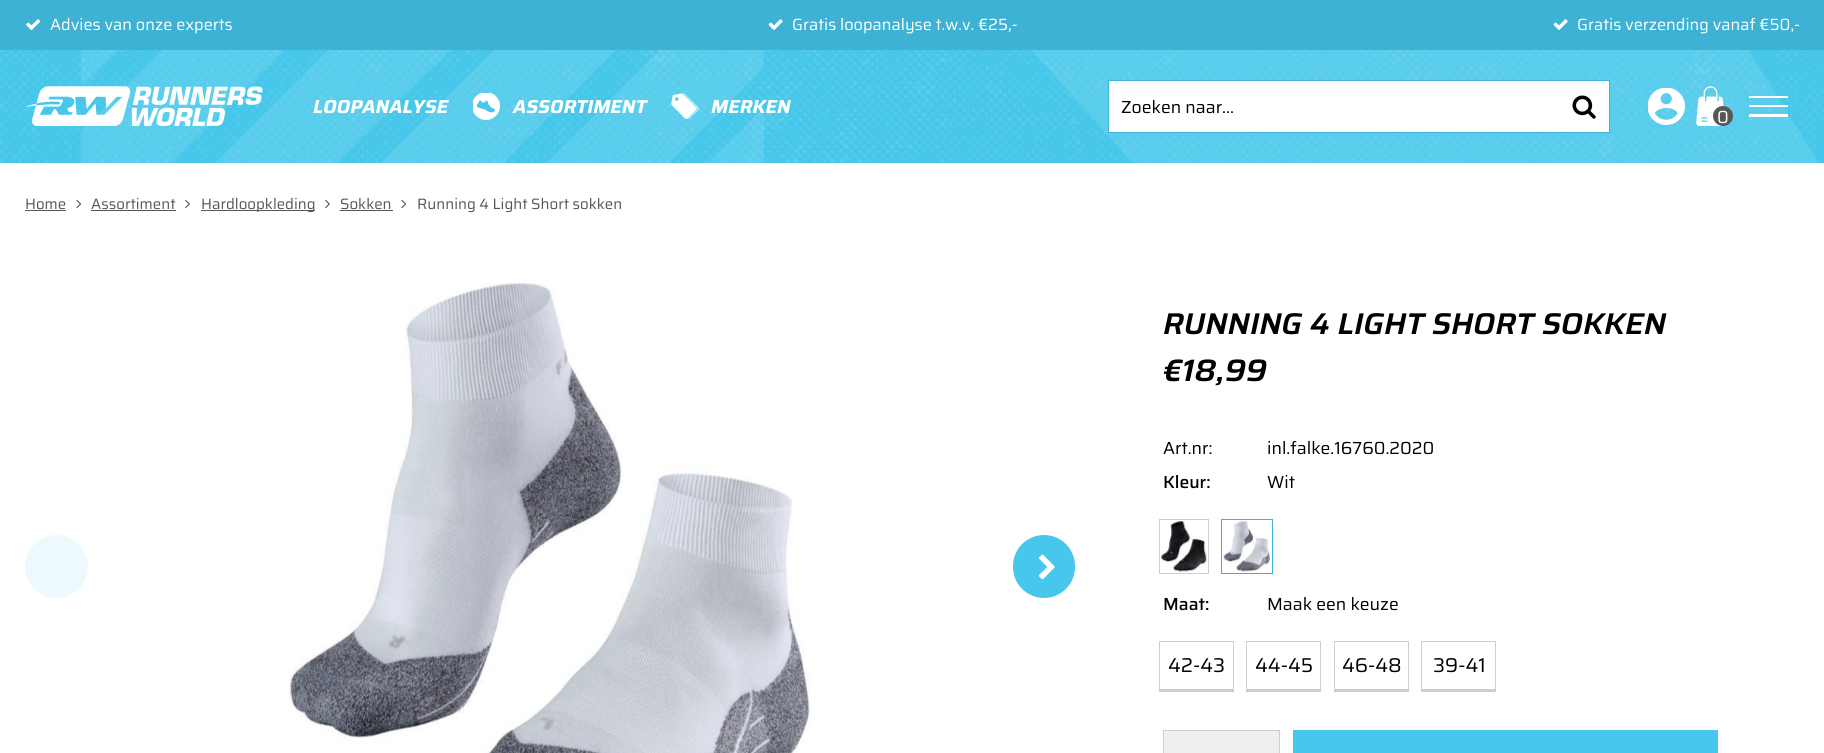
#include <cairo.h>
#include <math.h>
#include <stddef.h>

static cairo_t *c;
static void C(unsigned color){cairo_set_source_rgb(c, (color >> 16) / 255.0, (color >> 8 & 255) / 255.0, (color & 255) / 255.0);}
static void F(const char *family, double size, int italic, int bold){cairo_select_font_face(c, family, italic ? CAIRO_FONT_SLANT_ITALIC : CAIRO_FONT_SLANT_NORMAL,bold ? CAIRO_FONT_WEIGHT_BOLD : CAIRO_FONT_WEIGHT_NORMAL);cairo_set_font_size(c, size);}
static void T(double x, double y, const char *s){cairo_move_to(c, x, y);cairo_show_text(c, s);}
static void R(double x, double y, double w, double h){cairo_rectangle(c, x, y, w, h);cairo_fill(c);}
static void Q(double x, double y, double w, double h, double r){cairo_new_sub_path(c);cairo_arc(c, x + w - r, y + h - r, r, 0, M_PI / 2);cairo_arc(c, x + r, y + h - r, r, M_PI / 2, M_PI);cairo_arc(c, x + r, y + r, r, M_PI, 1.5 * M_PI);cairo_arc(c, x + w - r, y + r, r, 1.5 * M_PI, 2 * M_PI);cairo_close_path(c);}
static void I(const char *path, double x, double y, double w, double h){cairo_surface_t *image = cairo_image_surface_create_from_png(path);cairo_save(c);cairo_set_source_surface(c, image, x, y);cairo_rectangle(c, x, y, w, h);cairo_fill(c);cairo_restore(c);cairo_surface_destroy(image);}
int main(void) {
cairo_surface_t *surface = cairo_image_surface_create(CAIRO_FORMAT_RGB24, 1824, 753);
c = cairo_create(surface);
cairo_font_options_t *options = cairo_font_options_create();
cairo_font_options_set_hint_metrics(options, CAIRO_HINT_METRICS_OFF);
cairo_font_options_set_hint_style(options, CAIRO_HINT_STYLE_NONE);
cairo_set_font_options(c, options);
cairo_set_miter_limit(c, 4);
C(0xffffff);
cairo_paint(c);
C(0x3db2d4);
R(0,0,1824,50);
I("1.png",26,19,15,11);
F("Saira",16.25,0,0);
C(0xffffff);
T(50,30,"Advies van onze experts");
I("2.png",768,19,15,11);
T(792,30,"Gratis loopanalyse t.w.v. €25,-");
I("2.png",1553,19,15,11);
T(1577,30,"Gratis verzending vanaf €50,-");
I("3.png",0,50,1824,113);
I("4.png",25,86,238,40);
F("Saira",18.75,1,1);
T(313,113,"LOOPANALYSE");
I("5.png",473,93,27,27);
T(513,113,"ASSORTIMENT");
I("6.png",671,93,28,26);
T(711,113,"MERKEN");
cairo_rectangle(c,1108.5,80.5,501,52);
cairo_fill_preserve(c);
C(0x3db2d4);
cairo_set_line_width(c,1);
cairo_stroke(c);
F("Saira",17.5,0,0);
C(0x000000);
T(1121,113,"Zoeken naar...");
I("7.png",1572,95,24,24);
I("8.png",1648,88,37,37);
I("9.png",1696,86,28,40);
C(0x575756);
cairo_arc(c,1723,116,10,0,2 * M_PI);
cairo_fill(c);
C(0xffffff);
T(1717,123,"0");
R(1749,96,39,2);
R(1749,105,39,2);
R(1749,114,39,3);
F("Saira",15,0,0);
C(0x575756);
T(25,209,"Home");
R(25,210,41,1);
I("10.png",76,199,6,10);
T(91,209,"Assortiment");
R(91,210,85,1);
I("11.png",185,199,5,10);
R(201,210,114,1);
T(201,209,"Hardloopkleding");
I("11.png",325,199,5,10);
T(340,209,"Sokken");
R(340,210,53,1);
I("10.png",401,199,6,10);
T(417,209,"Running 4 Light Short sokken");
C(0xedf9fd);
cairo_new_path(c);
cairo_arc(c,56.5,566.5,31.5,0,2 * M_PI);
cairo_fill(c);
I("12.png",289,283,522,470);
C(0x47c7eb);
Q(1013,535,62,63,31);
cairo_fill(c);
I("13.png",1038,554,17,26);
F("Saira SemiBold",30,1,0);
C(0x000000);
T(1163,334,"RUNNING 4 LIGHT SHORT SOKKEN");
F("Saira SemiBold",31,1,0);
T(1163,381,"€18,99");
F("Saira",17.5,0,0);
T(1163,454,"Art.nr:");
T(1267,454,"inl.falke.16760.2020");
F("Saira Medium",17.5,0,0);
T(1163,488,"Kleur:");
F("Saira",17.5,0,0);
T(1267,488,"Wit");
cairo_rectangle(c,1159.5,519.5,49,54);
C(0xcecece);
cairo_stroke(c);
I("14.png",1161,521,46,51);
cairo_rectangle(c,1221.5,519.5,51,54);
C(0x3db2d4);
cairo_stroke(c);
I("15.png",1223,521,47,51);
F("Saira Medium",17.5,0,0);
C(0x000000);
T(1163,610,"Maat:");
F("Saira",17.5,0,0);
T(1267,610,"Maak een keuze");
C(0xcecece);
R(1159,641,75,1);
R(1233,641,1,50);
R(1159,689,75,3);
R(1159,641,1,50);
F("Saira",20,0,0);
C(0x000000);
T(1168,672,"42-43");
C(0xcecece);
R(1246,641,75,1);
R(1320,641,1,50);
R(1246,689,75,3);
R(1246,641,1,50);
C(0x000000);
T(1255,672,"44-45");
C(0xcecece);
R(1334,641,75,1);
R(1408,641,1,50);
R(1334,689,75,3);
R(1334,641,1,50);
C(0x000000);
T(1342,672,"46-48");
C(0xcecece);
R(1421,641,75,1);
R(1495,641,1,50);
R(1421,689,75,3);
R(1421,641,1,50);
C(0x000000);
T(1433,672,"39-41");
C(0xefefef);
cairo_rectangle(c,1163.5,730.5,116,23);
cairo_fill_preserve(c);
C(0xcecece);
cairo_stroke(c);
C(0x47c7eb);
R(1293,730,425,23);
cairo_surface_write_to_png(surface, "o.png");
cairo_font_options_destroy(options);
cairo_destroy(c);
cairo_surface_destroy(surface);
return 0;
}
